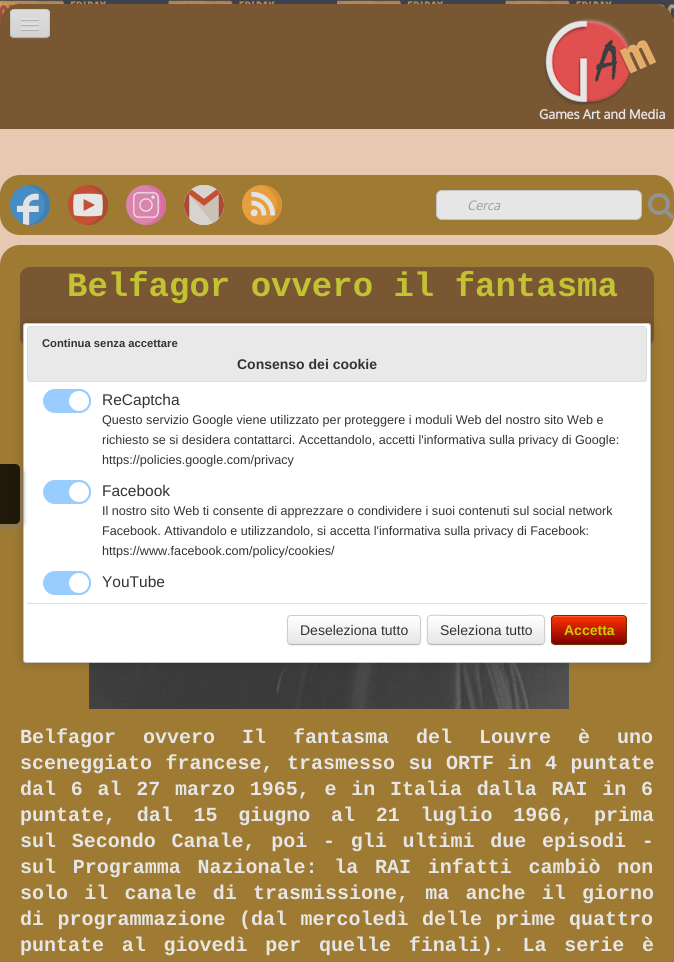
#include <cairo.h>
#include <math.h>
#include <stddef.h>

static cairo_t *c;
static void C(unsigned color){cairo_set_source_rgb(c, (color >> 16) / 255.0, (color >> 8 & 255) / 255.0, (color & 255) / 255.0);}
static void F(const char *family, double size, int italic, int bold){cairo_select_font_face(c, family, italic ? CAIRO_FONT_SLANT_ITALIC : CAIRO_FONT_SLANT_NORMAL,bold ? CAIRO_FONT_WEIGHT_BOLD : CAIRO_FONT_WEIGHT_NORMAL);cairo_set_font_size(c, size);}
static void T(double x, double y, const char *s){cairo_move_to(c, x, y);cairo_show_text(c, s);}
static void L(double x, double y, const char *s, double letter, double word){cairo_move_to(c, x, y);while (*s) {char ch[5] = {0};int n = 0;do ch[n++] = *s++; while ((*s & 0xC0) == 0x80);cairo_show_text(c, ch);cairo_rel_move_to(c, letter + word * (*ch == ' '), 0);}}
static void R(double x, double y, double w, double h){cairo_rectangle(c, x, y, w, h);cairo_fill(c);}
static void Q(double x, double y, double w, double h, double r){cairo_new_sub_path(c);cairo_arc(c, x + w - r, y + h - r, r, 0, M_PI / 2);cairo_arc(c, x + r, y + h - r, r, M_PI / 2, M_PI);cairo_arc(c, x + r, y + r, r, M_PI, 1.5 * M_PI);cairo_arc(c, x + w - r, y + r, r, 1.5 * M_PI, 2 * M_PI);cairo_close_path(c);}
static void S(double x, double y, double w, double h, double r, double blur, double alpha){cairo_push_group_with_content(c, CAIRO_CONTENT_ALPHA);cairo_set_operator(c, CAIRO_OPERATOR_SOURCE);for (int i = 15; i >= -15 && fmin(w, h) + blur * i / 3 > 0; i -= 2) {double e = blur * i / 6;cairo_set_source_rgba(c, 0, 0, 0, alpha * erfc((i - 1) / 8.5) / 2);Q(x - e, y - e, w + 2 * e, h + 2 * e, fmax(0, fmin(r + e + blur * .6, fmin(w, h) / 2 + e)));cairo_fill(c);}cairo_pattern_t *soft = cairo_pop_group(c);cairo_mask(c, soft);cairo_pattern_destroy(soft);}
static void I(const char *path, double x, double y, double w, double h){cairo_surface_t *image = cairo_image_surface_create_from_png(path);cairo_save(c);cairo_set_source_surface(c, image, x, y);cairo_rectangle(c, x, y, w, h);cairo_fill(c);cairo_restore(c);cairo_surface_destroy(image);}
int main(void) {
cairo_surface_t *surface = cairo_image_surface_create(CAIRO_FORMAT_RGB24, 674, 962);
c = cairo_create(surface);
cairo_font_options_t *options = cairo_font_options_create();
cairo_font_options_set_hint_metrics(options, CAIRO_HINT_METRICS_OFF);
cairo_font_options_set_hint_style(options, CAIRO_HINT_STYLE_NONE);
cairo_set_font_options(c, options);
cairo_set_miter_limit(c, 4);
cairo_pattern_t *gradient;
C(0xffffff);
cairo_paint(c);
I("1.png",0,0,674,24);
C(0x333333);
S(2,6,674,125,20,10,.5);
C(0x7a5733);
cairo_new_path(c);
cairo_move_to(c,20,4);
cairo_line_to(c,654,4);
cairo_curve_to(c,665,4,674,13,674,24);
cairo_line_to(c,674,129);
cairo_line_to(c,0,129);
cairo_line_to(c,0,24);
cairo_curve_to(c,0,13,9,4,20,4);
cairo_close_path(c);
cairo_fill(c);
C(0x826140);
cairo_new_path(c);
cairo_move_to(c,10,34);
cairo_curve_to(c,10,40,15,39,19,39);
cairo_line_to(c,41,39);
cairo_curve_to(c,45,39,50,40,50,34);
cairo_curve_to(c,50,36,48,38,46,38);
cairo_line_to(c,14,38);
cairo_curve_to(c,12,38,10,36,10,34);
cairo_close_path(c);
cairo_fill(c);
C(0xd9d9d9);
Q(10,9,40,29,4);
cairo_fill(c);
cairo_save(c);
Q(10,9,40,29,4);
cairo_clip(c);
gradient = cairo_pattern_create_linear(30,10,30,37);
cairo_pattern_add_color_stop_rgba(gradient,0,0.863,0.863,0.863,1);
cairo_pattern_add_color_stop_rgba(gradient,1,0.827,0.827,0.827,1);
cairo_set_source(c,gradient);
cairo_pattern_destroy(gradient);
R(10,10,40,27);
cairo_restore(c);
cairo_new_path(c);
cairo_move_to(c,48.5,36.5);
cairo_curve_to(c,48,37,47,37.5,46,37.5);
cairo_line_to(c,14,37.5);
cairo_curve_to(c,13,37.5,12,37,11.5,36.5);
cairo_set_source_rgba(c,0.2,0.2,0.2,0.25);
cairo_set_line_width(c,1);
cairo_stroke(c);
cairo_new_path(c);
cairo_move_to(c,11.5,36.5);
cairo_curve_to(c,11,36,10.5,35,10.5,34);
cairo_line_to(c,10.5,13);
cairo_curve_to(c,10.5,12,11,11,11.5,10.5);
cairo_curve_to(c,12,10,13,9.5,14,9.5);
cairo_line_to(c,46,9.5);
cairo_curve_to(c,47,9.5,48,10,48.5,10.5);
cairo_curve_to(c,49,11,49.5,12,49.5,13);
cairo_line_to(c,49.5,34);
cairo_curve_to(c,49.5,35,49,36,48.5,36.5);
cairo_set_source_rgba(c,0.2,0.2,0.2,0.1);
cairo_stroke(c);
C(0xb0b0b0);
cairo_new_path(c);
cairo_move_to(c,21,19.5);
cairo_curve_to(c,20,21.5,24.5,21,24.5,21);
cairo_line_to(c,35.5,21);
cairo_curve_to(c,35.5,21,40,21.5,39,19.5);
cairo_curve_to(c,38,20.5,31.5,20,30,20);
cairo_curve_to(c,28.5,20,22,20.5,21,19.5);
cairo_close_path(c);
cairo_fill(c);
C(0xdfdfdf);
Q(21,18,18,2,1);
cairo_fill(c);
C(0xaeaeae);
cairo_new_path(c);
cairo_move_to(c,21,24.5);
cairo_curve_to(c,20,26.5,24.5,26,24.5,26);
cairo_line_to(c,35.5,26);
cairo_curve_to(c,35.5,26,40,26.5,39,24.5);
cairo_curve_to(c,38,25.5,31.5,25,30,25);
cairo_curve_to(c,28.5,25,22,25.5,21,24.5);
cairo_close_path(c);
cairo_fill(c);
C(0xdfdfdf);
Q(21,23,18,2,1);
cairo_fill(c);
C(0xadadad);
cairo_new_path(c);
cairo_move_to(c,21,29.5);
cairo_curve_to(c,20,31.5,24.5,31,24.5,31);
cairo_line_to(c,35.5,31);
cairo_curve_to(c,35.5,31,40,31.5,39,29.5);
cairo_curve_to(c,38,30.5,31.5,30,30,30);
cairo_curve_to(c,28.5,30,22,30.5,21,29.5);
cairo_close_path(c);
cairo_fill(c);
C(0xdfdfdf);
Q(21,28,18,2,1);
cairo_fill(c);
I("2.png",543,18,114,88);
F("Oxygen",13,0,1);
C(0xe6e6e6);
T(539,119,"Games Art and Media");
C(0xe6c9b0);
R(0,129,674,136);
C(0x9e7a33);
Q(0,175,674,60,20);
cairo_fill(c);
I("3.png",10,185,40,40);
I("4.png",68,185,40,40);
I("5.png",126,185,40,40);
I("6.png",184,185,40,40);
I("7.png",242,185,40,40);
C(0xe6e6e6);
Q(436.5,190.5,205,29,5.5);
cairo_fill_preserve(c);
C(0xc2c2c2);
cairo_stroke(c);
F("Oxygen",13,1,0);
C(0x9e9e9e);
T(467,210,"Cerca");
I("8.png",648,193,26,26);
C(0x9e7a33);
Q(0,245,674,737,20);
cairo_fill(c);
C(0x7a5733);
Q(20,267,634,80,10);
cairo_fill(c);
F("Liberation Mono",34,0,1);
C(0xc2c233);
T(67,296,"Belfagor ovvero il fantasma");
I("9.png",89,663,480,46);
F("Liberation Mono",20,0,1);
C(0xe6e6e6);
L(20,743,"Belfagor ovvero Il fantasma del Louvre è uno",0,15);
L(20,769,"sceneggiato francese, trasmesso su ORTF in 4 puntate",0,1.5);
L(20,795,"dal 6 al 27 marzo 1965, e in Italia dalla RAI in 6",0,2.75);
L(20,821,"puntate, dal 15 giugno al 21 luglio 1966, prima",0,8.75);
L(20,847,"sul Secondo Canale, poi - gli ultimi due episodi -",0,3.75);
L(20,873,"sul Programma Nazionale: la RAI infatti cambiò non",0,4.75);
L(20,899,"solo il canale di trasmissione, ma anche il giorno",0,4.25);
L(20,925,"di programmazione (dal mercoledì delle prime quattro",0,1.5);
L(20,951,"puntate al giovedì per quelle finali). La serie è",0,5.75);
C(0x000000);
S(23,323,628,340,3,5,.2);
C(0xffffff);
Q(23.5,323.5,627,339,2.5);
cairo_fill_preserve(c);
C(0xc5c5c5);
cairo_stroke(c);
cairo_save(c);
cairo_set_fill_rule(c,CAIRO_FILL_RULE_EVEN_ODD);
cairo_new_path(c);
cairo_move_to(c,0,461);
cairo_line_to(c,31,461);
cairo_line_to(c,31,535);
cairo_line_to(c,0,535);
cairo_close_path(c);
cairo_move_to(c,-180,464);
cairo_line_to(c,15,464);
cairo_curve_to(c,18,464,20,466,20,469);
cairo_line_to(c,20,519);
cairo_curve_to(c,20,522,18,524,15,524);
cairo_line_to(c,-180,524);
cairo_close_path(c);
cairo_clip(c);
C(0x797777);
S(-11,468,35,60,5,2,.51);
cairo_restore(c);
cairo_set_source_rgba(c,0,0,0,0.8);
cairo_new_path(c);
cairo_move_to(c,-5,464);
cairo_line_to(c,15,464);
cairo_curve_to(c,18,464,20,466,20,469);
cairo_line_to(c,20,519);
cairo_curve_to(c,20,522,18,524,15,524);
cairo_line_to(c,-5,524);
cairo_close_path(c);
cairo_fill(c);
C(0xe9e9e9);
Q(27.5,326.5,619,55,2.5);
cairo_fill_preserve(c);
C(0xdddddd);
cairo_stroke(c);
F("Liberation Sans",11.25,0,1);
C(0x333333);
T(42,347,"Continua senza accettare");
F("Liberation Sans",14,0,1);
T(237,369,"Consenso dei cookie");
C(0x99ccff);
Q(44,390,46,22,11);
cairo_fill_preserve(c);
cairo_set_line_width(c,2);
cairo_stroke(c);
C(0xffffff);
cairo_arc(c,79,401,11,0,2 * M_PI);
cairo_fill_preserve(c);
C(0x99ccff);
cairo_stroke(c);
F("Liberation Sans",15.5,0,0);
C(0x333333);
T(102,405,"ReCaptcha");
F("Liberation Sans",12.6,0,0);
T(102,424,"Questo servizio Google viene utilizzato per proteggere i moduli Web del nostro sito Web e");
T(102,444,"richiesto se si desidera contattarci. Accettandolo, accetti l'informativa sulla privacy di Google:");
T(102,464,"https://policies.google.com/privacy");
C(0x99ccff);
Q(44,481,46,22,11);
cairo_fill_preserve(c);
cairo_stroke(c);
C(0xffffff);
cairo_arc(c,79,492,11,0,2 * M_PI);
cairo_fill_preserve(c);
C(0x99ccff);
cairo_stroke(c);
F("Liberation Sans",15.5,0,0);
C(0x333333);
T(102,496,"Facebook");
F("Liberation Sans",12.6,0,0);
T(102,515,"Il nostro sito Web ti consente di apprezzare o condividere i suoi contenuti sul social network");
T(102,535,"Facebook. Attivandolo e utilizzandolo, si accetta l'informativa sulla privacy di Facebook:");
T(102,555,"https://www.facebook.com/policy/cookies/");
C(0x99ccff);
Q(44,572,46,22,11);
cairo_fill_preserve(c);
cairo_stroke(c);
C(0xffffff);
cairo_arc(c,79,583,11,0,2 * M_PI);
cairo_fill_preserve(c);
C(0x99ccff);
cairo_stroke(c);
F("Liberation Sans",15.5,0,0);
C(0x333333);
T(102,587,"YouTube");
C(0xdddddd);
R(27,603,620,1);
C(0x000000);
S(287,616,134,30,4,1,.05);
cairo_save(c);
Q(287,615,134,30,4);
cairo_clip(c);
gradient = cairo_pattern_create_linear(354,616,354,644);
cairo_pattern_add_color_stop_rgba(gradient,0,1,1,1,1);
cairo_pattern_add_color_stop_rgba(gradient,1,0.902,0.902,0.902,1);
cairo_set_source(c,gradient);
cairo_pattern_destroy(gradient);
R(287,616,134,28);
cairo_restore(c);
cairo_new_path(c);
cairo_move_to(c,419.5,643.5);
cairo_curve_to(c,419,644,418,644.5,417,644.5);
cairo_line_to(c,291,644.5);
cairo_curve_to(c,290,644.5,289,644,288.5,643.5);
C(0xb3b3b3);
cairo_set_line_width(c,1);
cairo_stroke(c);
cairo_new_path(c);
cairo_move_to(c,288.5,643.5);
cairo_curve_to(c,286.5,641.5,287.5,633,287.5,630);
cairo_line_to(c,287.5,622.5);
cairo_curve_to(c,287.5,620,287,615.5,291,615.5);
cairo_line_to(c,417,615.5);
cairo_curve_to(c,421,615.5,420.5,620,420.5,622.5);
cairo_line_to(c,420.5,630);
cairo_curve_to(c,420.5,633,421.5,641.5,419.5,643.5);
C(0xcccccc);
cairo_stroke(c);
F("Liberation Sans",14,0,0);
C(0x333333);
T(300,635,"Deseleziona tutto");
C(0x000000);
S(427,616,118,30,4,1,.05);
C(0xf5f5f5);
Q(427,615,118,30,4);
cairo_fill(c);
cairo_save(c);
Q(427,615,118,30,4);
cairo_clip(c);
gradient = cairo_pattern_create_linear(486,616,486,644);
cairo_pattern_add_color_stop_rgba(gradient,0,1,1,1,1);
cairo_pattern_add_color_stop_rgba(gradient,1,0.902,0.902,0.902,1);
cairo_set_source(c,gradient);
cairo_pattern_destroy(gradient);
R(427,616,118,28);
cairo_restore(c);
cairo_new_path(c);
cairo_move_to(c,543.5,643.5);
cairo_line_to(c,541.5,644.5);
cairo_line_to(c,449.5,644.5);
cairo_line_to(c,431,644.5);
cairo_line_to(c,428.5,643.5);
C(0xb3b3b3);
cairo_stroke(c);
cairo_new_path(c);
cairo_move_to(c,428.5,643.5);
cairo_curve_to(c,426,641,427.5,636.5,427.5,633.5);
cairo_curve_to(c,427.5,611,424,615.5,449.5,615.5);
cairo_line_to(c,522.5,615.5);
cairo_curve_to(c,548,615.5,544.5,611,544.5,633.5);
cairo_curve_to(c,544.5,636.5,546,641,543.5,643.5);
C(0xcccccc);
cairo_stroke(c);
C(0x333333);
T(440,635,"Seleziona tutto");
C(0x000000);
S(551,616,76,30,4,1,.05);
cairo_save(c);
Q(551,615,76,30,4);
cairo_clip(c);
gradient = cairo_pattern_create_linear(589,616,589,644);
cairo_pattern_add_color_stop_rgba(gradient,0,1,0.2,0,1);
cairo_pattern_add_color_stop_rgba(gradient,1,0.502,0,0,1);
cairo_set_source(c,gradient);
cairo_pattern_destroy(gradient);
R(551,616,76,28);
cairo_restore(c);
cairo_set_source_rgba(c,1,1,1,0.2);
cairo_new_path(c);
cairo_move_to(c,555,617);
cairo_line_to(c,623,617);
cairo_curve_to(c,625,617,626,618,626,620);
cairo_curve_to(c,626,613,616,616,612,616);
cairo_line_to(c,566,616);
cairo_curve_to(c,562,616,552,613,552,620);
cairo_curve_to(c,552,618,553,617,555,617);
cairo_close_path(c);
cairo_fill(c);
Q(551.5,615.5,75,29,3.5);
C(0x663300);
cairo_stroke(c);
F("Liberation Sans",14,0,1);
C(0xcccc00);
T(564,635,"Accetta");
cairo_surface_write_to_png(surface, "o.png");
cairo_font_options_destroy(options);
cairo_destroy(c);
cairo_surface_destroy(surface);
return 0;
}
